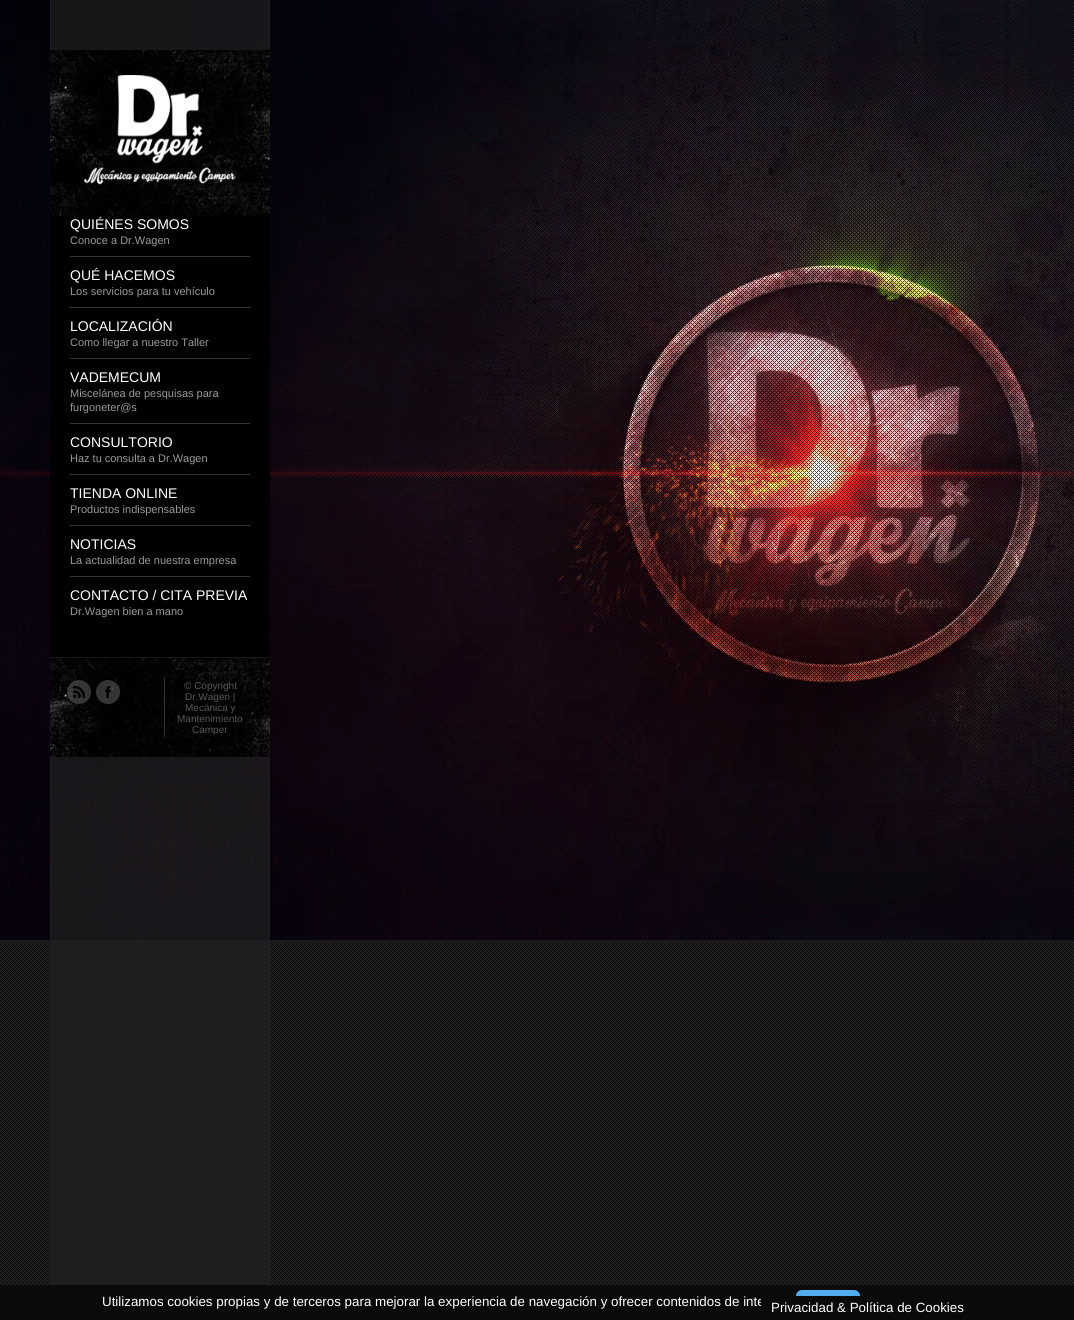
#include <cairo.h>
#include <math.h>
#include <stddef.h>

static cairo_t *c;
static void C(unsigned color){cairo_set_source_rgb(c, (color >> 16) / 255.0, (color >> 8 & 255) / 255.0, (color & 255) / 255.0);}
static void F(const char *family, double size, int italic, int bold){cairo_select_font_face(c, family, italic ? CAIRO_FONT_SLANT_ITALIC : CAIRO_FONT_SLANT_NORMAL,bold ? CAIRO_FONT_WEIGHT_BOLD : CAIRO_FONT_WEIGHT_NORMAL);cairo_set_font_size(c, size);}
static void T(double x, double y, const char *s){cairo_move_to(c, x, y);cairo_show_text(c, s);}
static void R(double x, double y, double w, double h){cairo_rectangle(c, x, y, w, h);cairo_fill(c);}
static void Q(double x, double y, double w, double h, double r){cairo_new_sub_path(c);cairo_arc(c, x + w - r, y + h - r, r, 0, M_PI / 2);cairo_arc(c, x + r, y + h - r, r, M_PI / 2, M_PI);cairo_arc(c, x + r, y + r, r, M_PI, 1.5 * M_PI);cairo_arc(c, x + w - r, y + r, r, 1.5 * M_PI, 2 * M_PI);cairo_close_path(c);}
static void I(const char *path, double x, double y, double w, double h){cairo_surface_t *image = cairo_image_surface_create_from_png(path);cairo_save(c);cairo_set_source_surface(c, image, x, y);cairo_rectangle(c, x, y, w, h);cairo_fill(c);cairo_restore(c);cairo_surface_destroy(image);}
int main(void) {
cairo_surface_t *surface = cairo_image_surface_create(CAIRO_FORMAT_RGB24, 1074, 1320);
c = cairo_create(surface);
cairo_font_options_t *options = cairo_font_options_create();
cairo_font_options_set_hint_metrics(options, CAIRO_HINT_METRICS_OFF);
cairo_font_options_set_hint_style(options, CAIRO_HINT_STYLE_NONE);
cairo_set_font_options(c, options);
cairo_set_miter_limit(c, 4);
C(0x222222);
cairo_paint(c);
I("1.png",0,0,1074,940);
I("2.png",0,0,1074,1285);
cairo_set_source_rgba(c,0.133,0.133,0.133,0.67);
R(50,0,220,1285);
R(50,0,1,1285);
R(269,0,1,1285);
C(0x000000);
R(50,216,220,441);
I("3.png",50,50,220,166);
I("4.png",84,75,152,110);
C(0x343434);
R(70,256,180,1);
F("Liberation Sans",14,0,0);
C(0xffffff);
T(70,229,"QUIÉNES SOMOS");
F("Liberation Sans",11,0,0);
C(0x999999);
T(70,244,"Conoce a Dr.Wagen");
C(0x343434);
R(70,307,180,1);
F("Liberation Sans",14,0,0);
C(0xffffff);
T(70,280,"QUÉ HACEMOS");
F("Liberation Sans",11,0,0);
C(0x999999);
T(70,295,"Los servicios para tu vehículo");
C(0x343434);
R(70,358,180,1);
F("Liberation Sans",14,0,0);
C(0xffffff);
T(70,331,"LOCALIZACIÓN");
F("Liberation Sans",11,0,0);
C(0x999999);
T(70,346,"Como llegar a nuestro Taller");
C(0x343434);
R(70,423,180,1);
F("Liberation Sans",14,0,0);
C(0xffffff);
T(70,382,"VADEMECUM");
F("Liberation Sans",11,0,0);
C(0x999999);
T(70,397,"Miscelánea de pesquisas para");
T(70,411,"furgoneter@s");
C(0x343434);
R(70,474,180,1);
F("Liberation Sans",14,0,0);
C(0xffffff);
T(70,447,"CONSULTORIO");
F("Liberation Sans",11,0,0);
C(0x999999);
T(70,462,"Haz tu consulta a Dr.Wagen");
C(0x343434);
R(70,525,180,1);
F("Liberation Sans",14,0,0);
C(0xffffff);
T(70,498,"TIENDA ONLINE");
F("Liberation Sans",11,0,0);
C(0x999999);
T(70,513,"Productos indispensables");
C(0x343434);
R(70,576,180,1);
F("Liberation Sans",14,0,0);
C(0xffffff);
T(70,549,"NOTICIAS");
F("Liberation Sans",11,0,0);
C(0x999999);
T(70,564,"La actualidad de nuestra empresa");
F("Liberation Sans",14,0,0);
C(0xffffff);
T(70,600,"CONTACTO / CITA PREVIA");
F("Liberation Sans",11,0,0);
C(0x999999);
T(70,615,"Dr.Wagen bien a mano");
I("5.png",50,658,220,99);
I("6.png",67,680,24,24);
I("7.png",96,680,24,24);
C(0x343434);
R(164,678,1,59);
F("Liberation Sans",10,0,0);
C(0x555555);
T(184,689,"© Copyright");
T(185,700,"Dr.Wagen |");
T(185,711,"Mecánica y");
T(177,722,"Mantenimiento");
T(192,733,"Camper");
C(0x0a0a0a);
R(0,1285,1074,35);
F("Liberation Sans",13.35,0,0);
C(0xffffff);
T(102,1306,"Utilizamos cookies propias y de terceros para mejorar la experiencia de navegación y ofrecer contenidos de inte");
C(0x1994e6);
Q(796,1290,64,25,6);
cairo_fill(c);
I("8.png",796,1290,64,6);
C(0x0a0a0a);
R(761,1296,99,19);
C(0xffffff);
T(771,1312,"Privacidad & Política de Cookies");
cairo_surface_write_to_png(surface, "o.png");
cairo_font_options_destroy(options);
cairo_destroy(c);
cairo_surface_destroy(surface);
return 0;
}
